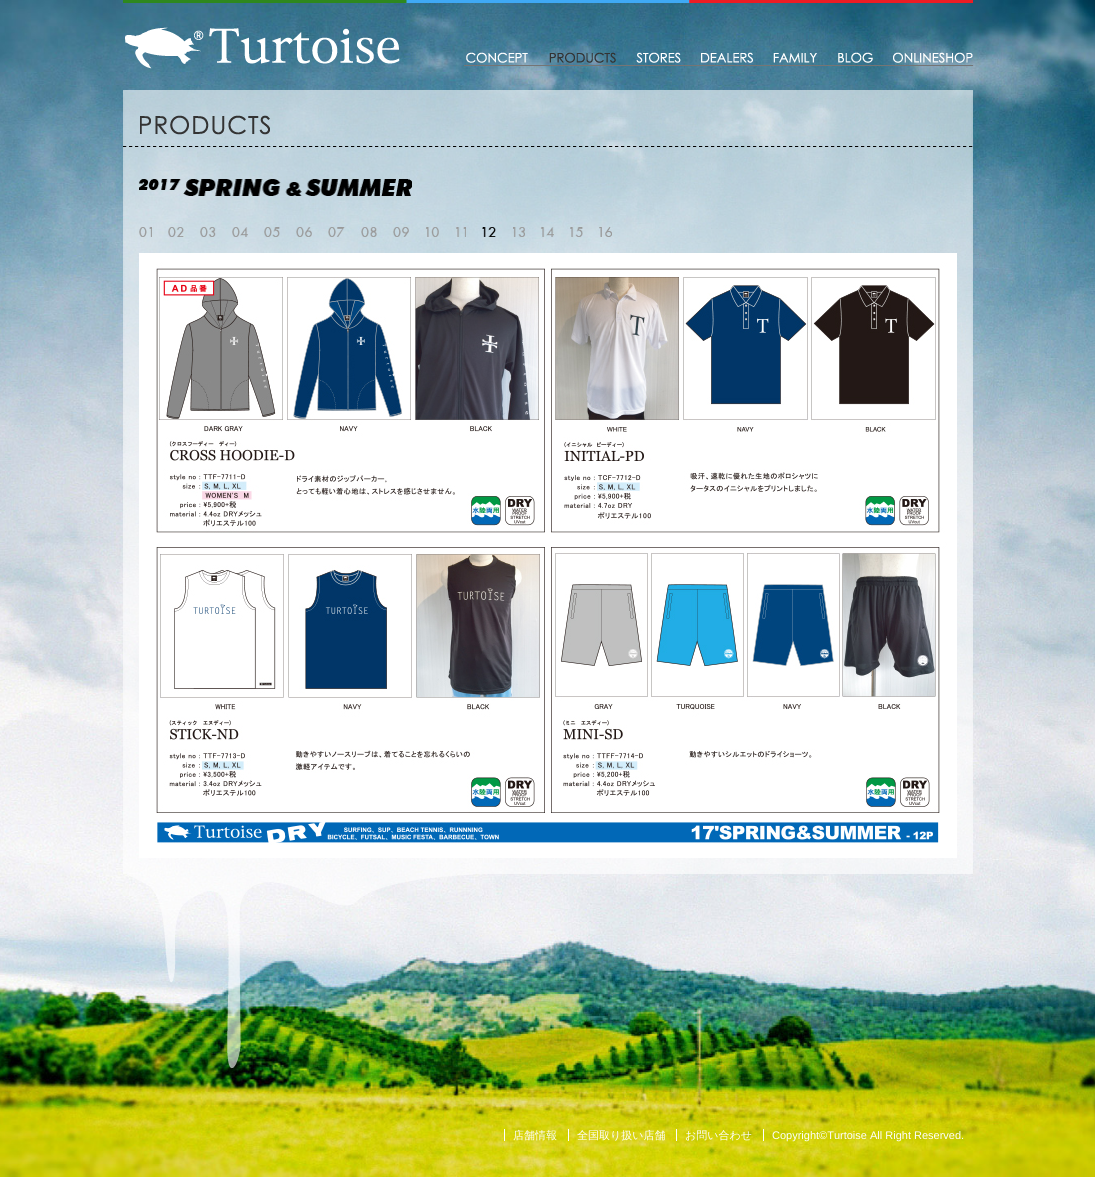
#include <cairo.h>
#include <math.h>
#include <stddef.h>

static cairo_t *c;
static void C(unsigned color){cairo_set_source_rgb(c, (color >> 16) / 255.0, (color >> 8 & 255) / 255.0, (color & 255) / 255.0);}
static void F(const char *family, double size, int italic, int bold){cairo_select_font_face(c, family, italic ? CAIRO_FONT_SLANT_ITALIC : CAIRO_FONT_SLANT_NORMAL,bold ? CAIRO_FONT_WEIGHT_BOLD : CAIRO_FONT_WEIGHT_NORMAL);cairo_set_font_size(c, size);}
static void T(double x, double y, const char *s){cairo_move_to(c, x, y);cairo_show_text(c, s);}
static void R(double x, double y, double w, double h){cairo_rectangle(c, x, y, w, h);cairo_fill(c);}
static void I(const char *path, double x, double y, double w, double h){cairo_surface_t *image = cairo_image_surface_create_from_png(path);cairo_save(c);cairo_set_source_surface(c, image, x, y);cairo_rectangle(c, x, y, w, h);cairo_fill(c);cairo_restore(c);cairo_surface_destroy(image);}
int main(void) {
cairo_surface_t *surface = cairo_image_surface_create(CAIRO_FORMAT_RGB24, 1095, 1177);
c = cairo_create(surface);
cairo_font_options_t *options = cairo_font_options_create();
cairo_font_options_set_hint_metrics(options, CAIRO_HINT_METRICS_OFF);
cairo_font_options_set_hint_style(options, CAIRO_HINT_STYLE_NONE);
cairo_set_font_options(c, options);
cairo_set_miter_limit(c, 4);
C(0xffffff);
cairo_paint(c);
I("1.png",0,0,1095,1177);
I("2.png",123,0,850,3);
I("3.png",125,27,275,42);
C(0x757575);
R(464,65,509,1);
I("4.png",466,52,62,11);
I("5.png",549,52,67,11);
I("6.png",636,52,45,11);
I("7.png",701,52,52,11);
I("8.png",773,53,44,10);
I("9.png",838,52,35,11);
I("10.png",893,52,80,11);
I("11.png",123,90,850,784);
I("12.png",123,146,850,1);
I("13.png",140,115,130,20);
I("14.png",139,179,273,17);
I("15.png",139,227,13,10);
I("16.png",168,227,16,10);
I("17.png",200,227,16,10);
I("18.png",232,227,16,10);
I("19.png",264,227,16,10);
I("20.png",296,227,16,10);
I("21.png",328,227,17,10);
I("22.png",361,227,16,10);
I("23.png",393,227,16,10);
I("24.png",426,227,13,10);
I("25.png",456,227,10,10);
I("26.png",482,227,14,10);
I("27.png",513,227,12,10);
I("28.png",541,227,13,10);
I("29.png",570,227,13,10);
I("30.png",599,227,13,10);
I("31.png",139,253,818,605);
I("32.png",127,874,346,195);
F("WenQuanYi Zen Hei Medium",11,0,0);
C(0xffffff);
T(513,1139,"店舗情報");
R(504,1129,1,12);
T(577,1139,"全国取り扱い店舗");
R(568,1129,1,12);
T(685,1139,"お問い合わせ");
R(676,1129,1,12);
F("Liberation Sans",11,0,0);
T(772,1139,"Copyright©Turtoise All Right Reserved.");
R(763,1129,1,12);
cairo_surface_write_to_png(surface, "o.png");
cairo_font_options_destroy(options);
cairo_destroy(c);
cairo_surface_destroy(surface);
return 0;
}
